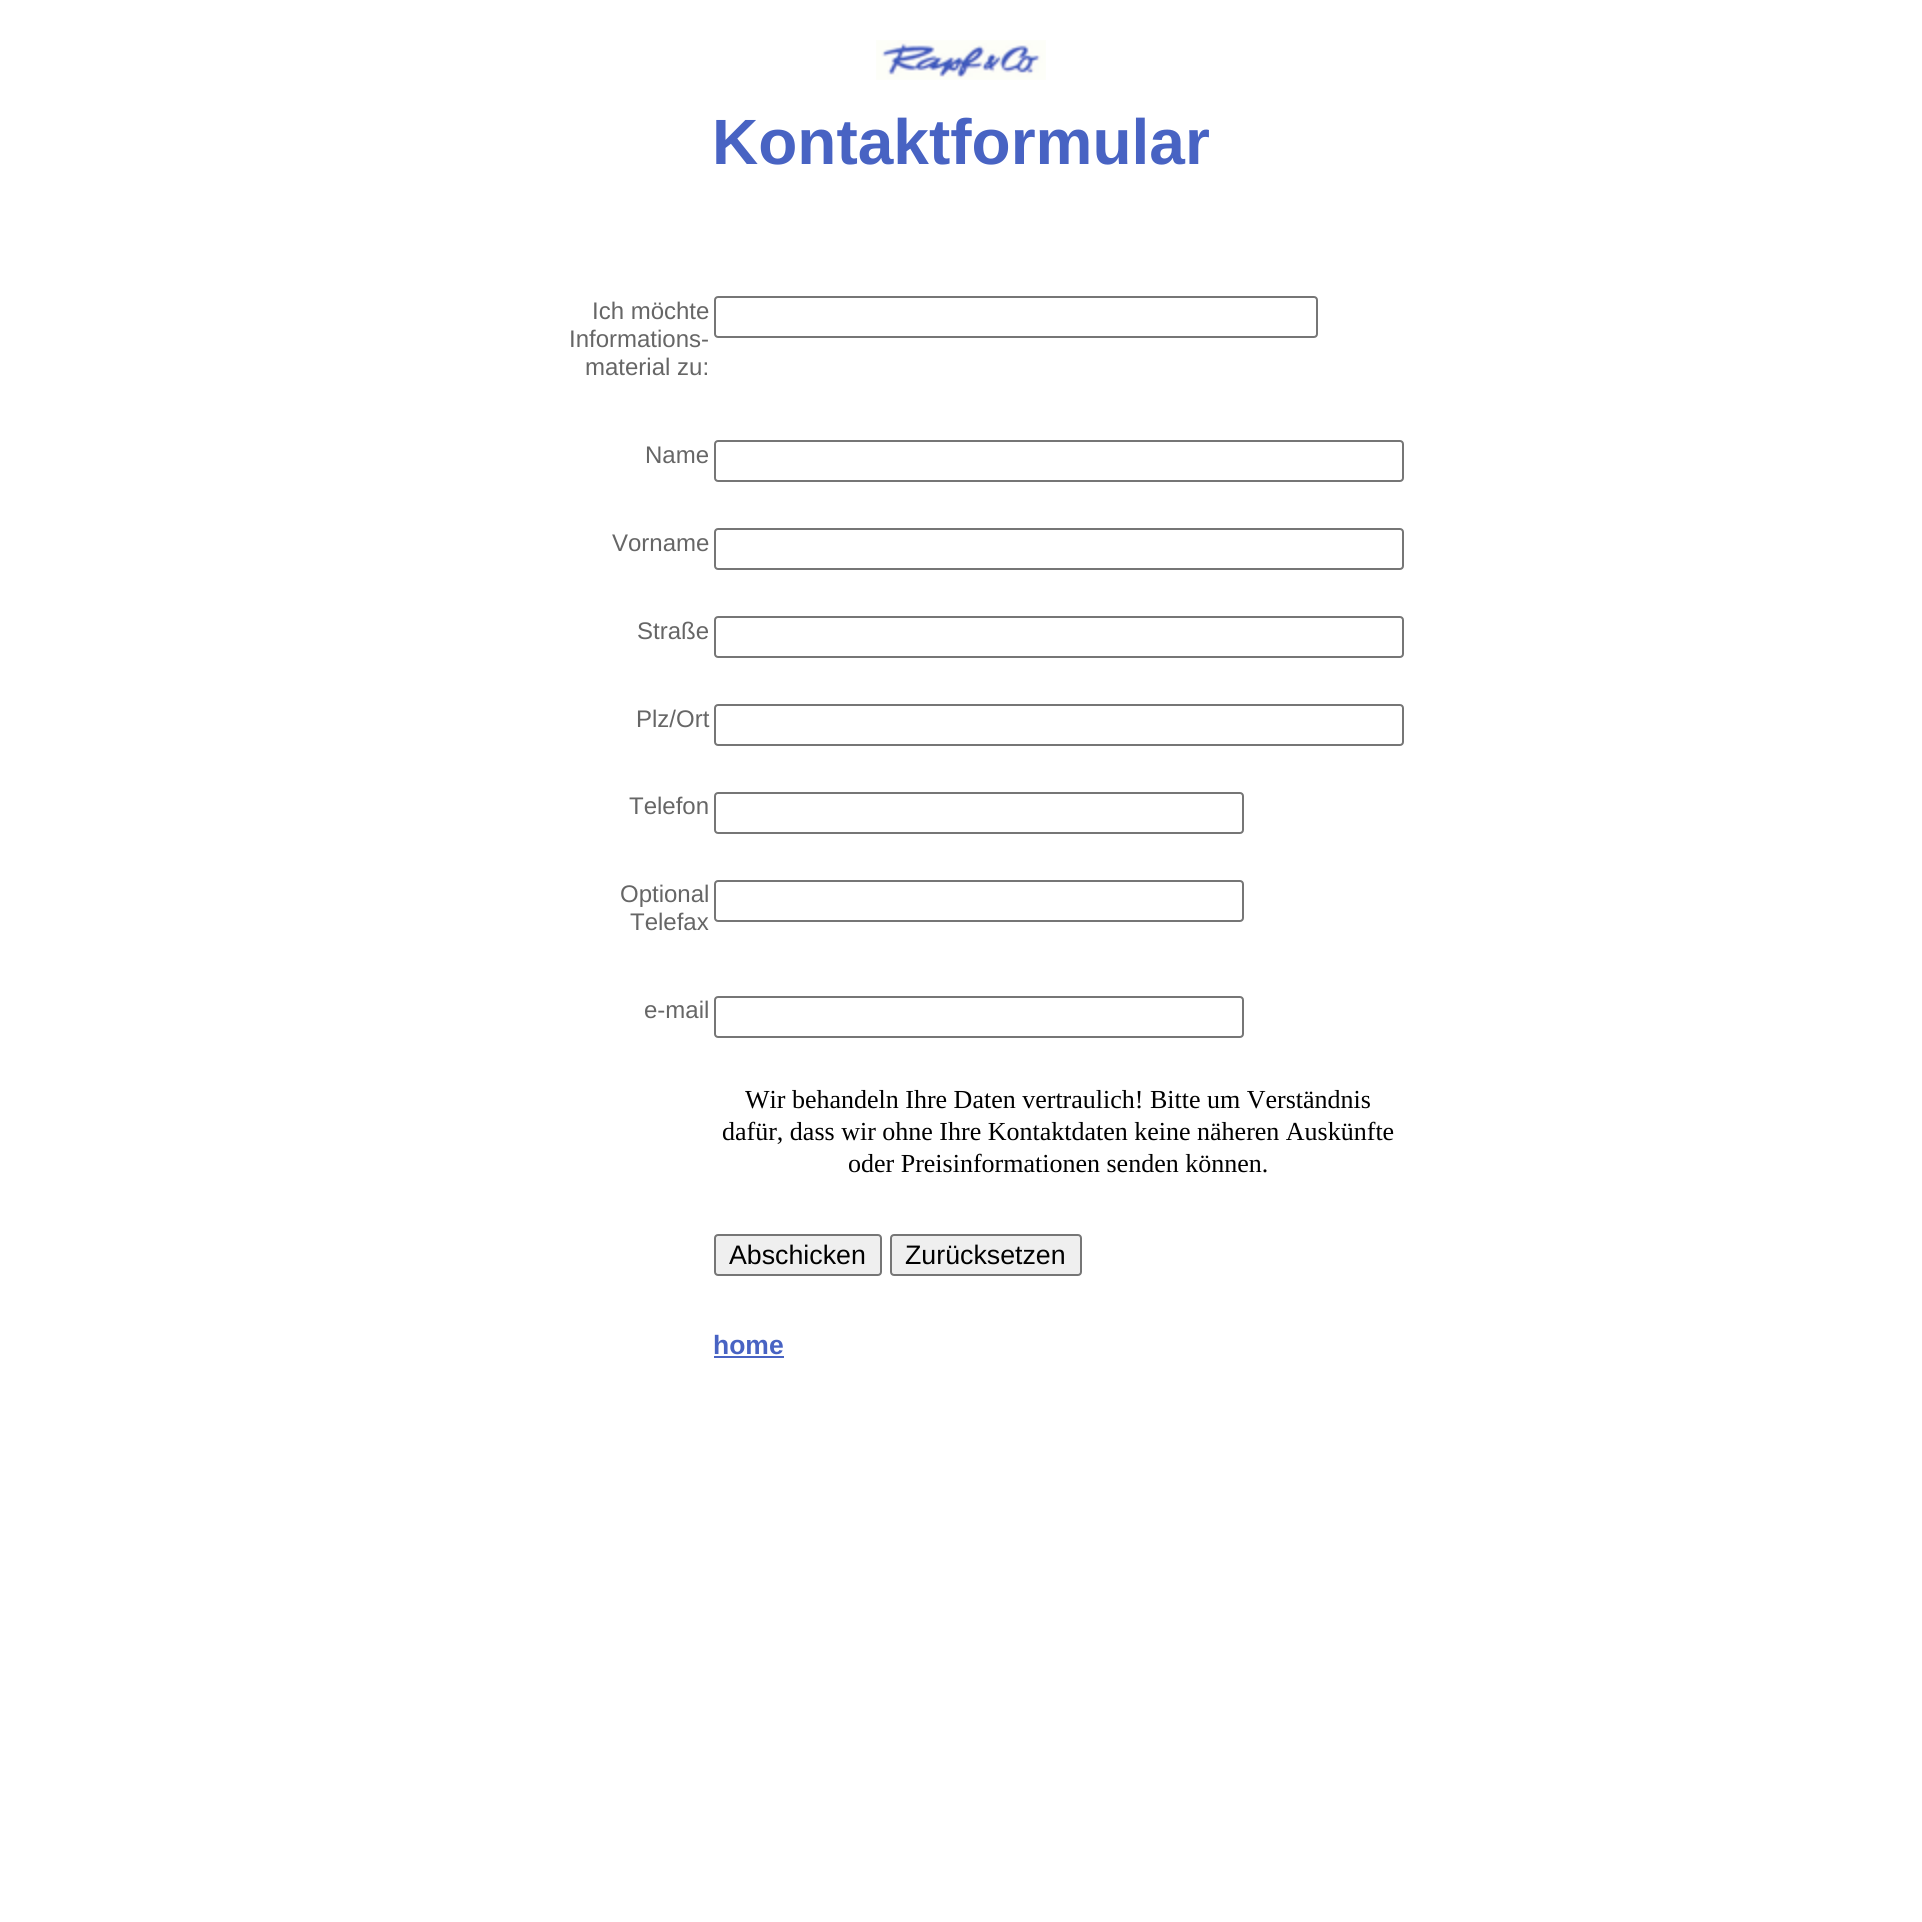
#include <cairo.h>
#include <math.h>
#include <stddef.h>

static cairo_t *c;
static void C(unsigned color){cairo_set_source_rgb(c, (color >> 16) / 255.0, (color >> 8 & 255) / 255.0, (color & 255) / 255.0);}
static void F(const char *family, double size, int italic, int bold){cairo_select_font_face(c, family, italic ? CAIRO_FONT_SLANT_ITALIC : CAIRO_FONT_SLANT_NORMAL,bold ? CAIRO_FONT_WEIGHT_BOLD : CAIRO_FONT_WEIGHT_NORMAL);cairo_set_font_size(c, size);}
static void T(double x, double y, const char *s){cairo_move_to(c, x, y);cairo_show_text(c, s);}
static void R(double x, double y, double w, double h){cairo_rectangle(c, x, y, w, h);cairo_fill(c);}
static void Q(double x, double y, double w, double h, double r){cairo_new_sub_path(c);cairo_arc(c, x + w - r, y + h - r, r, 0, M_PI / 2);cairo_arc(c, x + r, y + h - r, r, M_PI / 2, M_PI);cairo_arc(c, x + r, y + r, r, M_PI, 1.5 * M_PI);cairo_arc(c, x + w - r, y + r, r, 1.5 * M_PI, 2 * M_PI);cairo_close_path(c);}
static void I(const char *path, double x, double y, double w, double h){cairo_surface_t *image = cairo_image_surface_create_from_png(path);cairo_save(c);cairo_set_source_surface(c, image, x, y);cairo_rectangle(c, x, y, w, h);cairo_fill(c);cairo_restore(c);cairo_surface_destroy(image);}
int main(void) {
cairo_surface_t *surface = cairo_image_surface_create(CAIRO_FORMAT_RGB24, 1922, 1922);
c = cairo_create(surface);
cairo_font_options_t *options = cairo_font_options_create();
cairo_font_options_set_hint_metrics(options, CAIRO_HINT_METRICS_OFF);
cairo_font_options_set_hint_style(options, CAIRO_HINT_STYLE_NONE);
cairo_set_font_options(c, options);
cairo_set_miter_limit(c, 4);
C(0xffffff);
cairo_paint(c);
I("1.png",876,40,170,40);
F("Liberation Sans",64,0,1);
C(0x4863c3);
T(712,164,"Kontaktformular");
F("Liberation Sans",24,0,0);
C(0x666666);
T(592,319,"Ich möchte");
T(569,347,"Informations-");
T(585,375,"material zu:");
Q(715,297,602,40,3);
C(0x767676);
cairo_stroke(c);
C(0x666666);
T(645,463,"Name");
Q(715,441,688,40,3);
C(0x767676);
cairo_stroke(c);
C(0x666666);
T(612,551,"Vorname");
Q(715,529,688,40,3);
C(0x767676);
cairo_stroke(c);
C(0x666666);
T(637,639,"Straße");
Q(715,617,688,40,3);
C(0x767676);
cairo_stroke(c);
C(0x666666);
T(636,727,"Plz/Ort");
Q(715,705,688,40,3);
C(0x767676);
cairo_stroke(c);
C(0x666666);
T(629,814,"Telefon");
Q(715,793,528,40,3);
C(0x767676);
cairo_stroke(c);
C(0x666666);
T(620,902,"Optional");
T(630,930,"Telefax");
Q(715,881,528,40,3);
C(0x767676);
cairo_stroke(c);
C(0x666666);
T(644,1018,"e-mail");
Q(715,997,528,40,3);
C(0x767676);
cairo_stroke(c);
F("Liberation Serif",26,0,0);
C(0x000000);
T(745,1108,"Wir behandeln Ihre Daten vertraulich! Bitte um Verständnis");
T(722,1140,"dafür, dass wir ohne Ihre Kontaktdaten keine näheren Auskünfte");
T(848,1172,"oder Preisinformationen senden können.");
C(0xefefef);
Q(715,1235,166,40,3);
cairo_fill_preserve(c);
C(0x767676);
cairo_stroke(c);
F("Liberation Sans",26.75,0,0);
C(0x000000);
T(729,1264,"Abschicken");
C(0xefefef);
Q(891,1235,190,40,3);
cairo_fill_preserve(c);
C(0x767676);
cairo_stroke(c);
C(0x000000);
T(905,1264,"Zurücksetzen");
F("Liberation Sans",26.5,0,1);
C(0x4863c3);
T(713,1354,"home");
R(714,1356,70,2);
cairo_surface_write_to_png(surface, "o.png");
cairo_font_options_destroy(options);
cairo_destroy(c);
cairo_surface_destroy(surface);
return 0;
}
